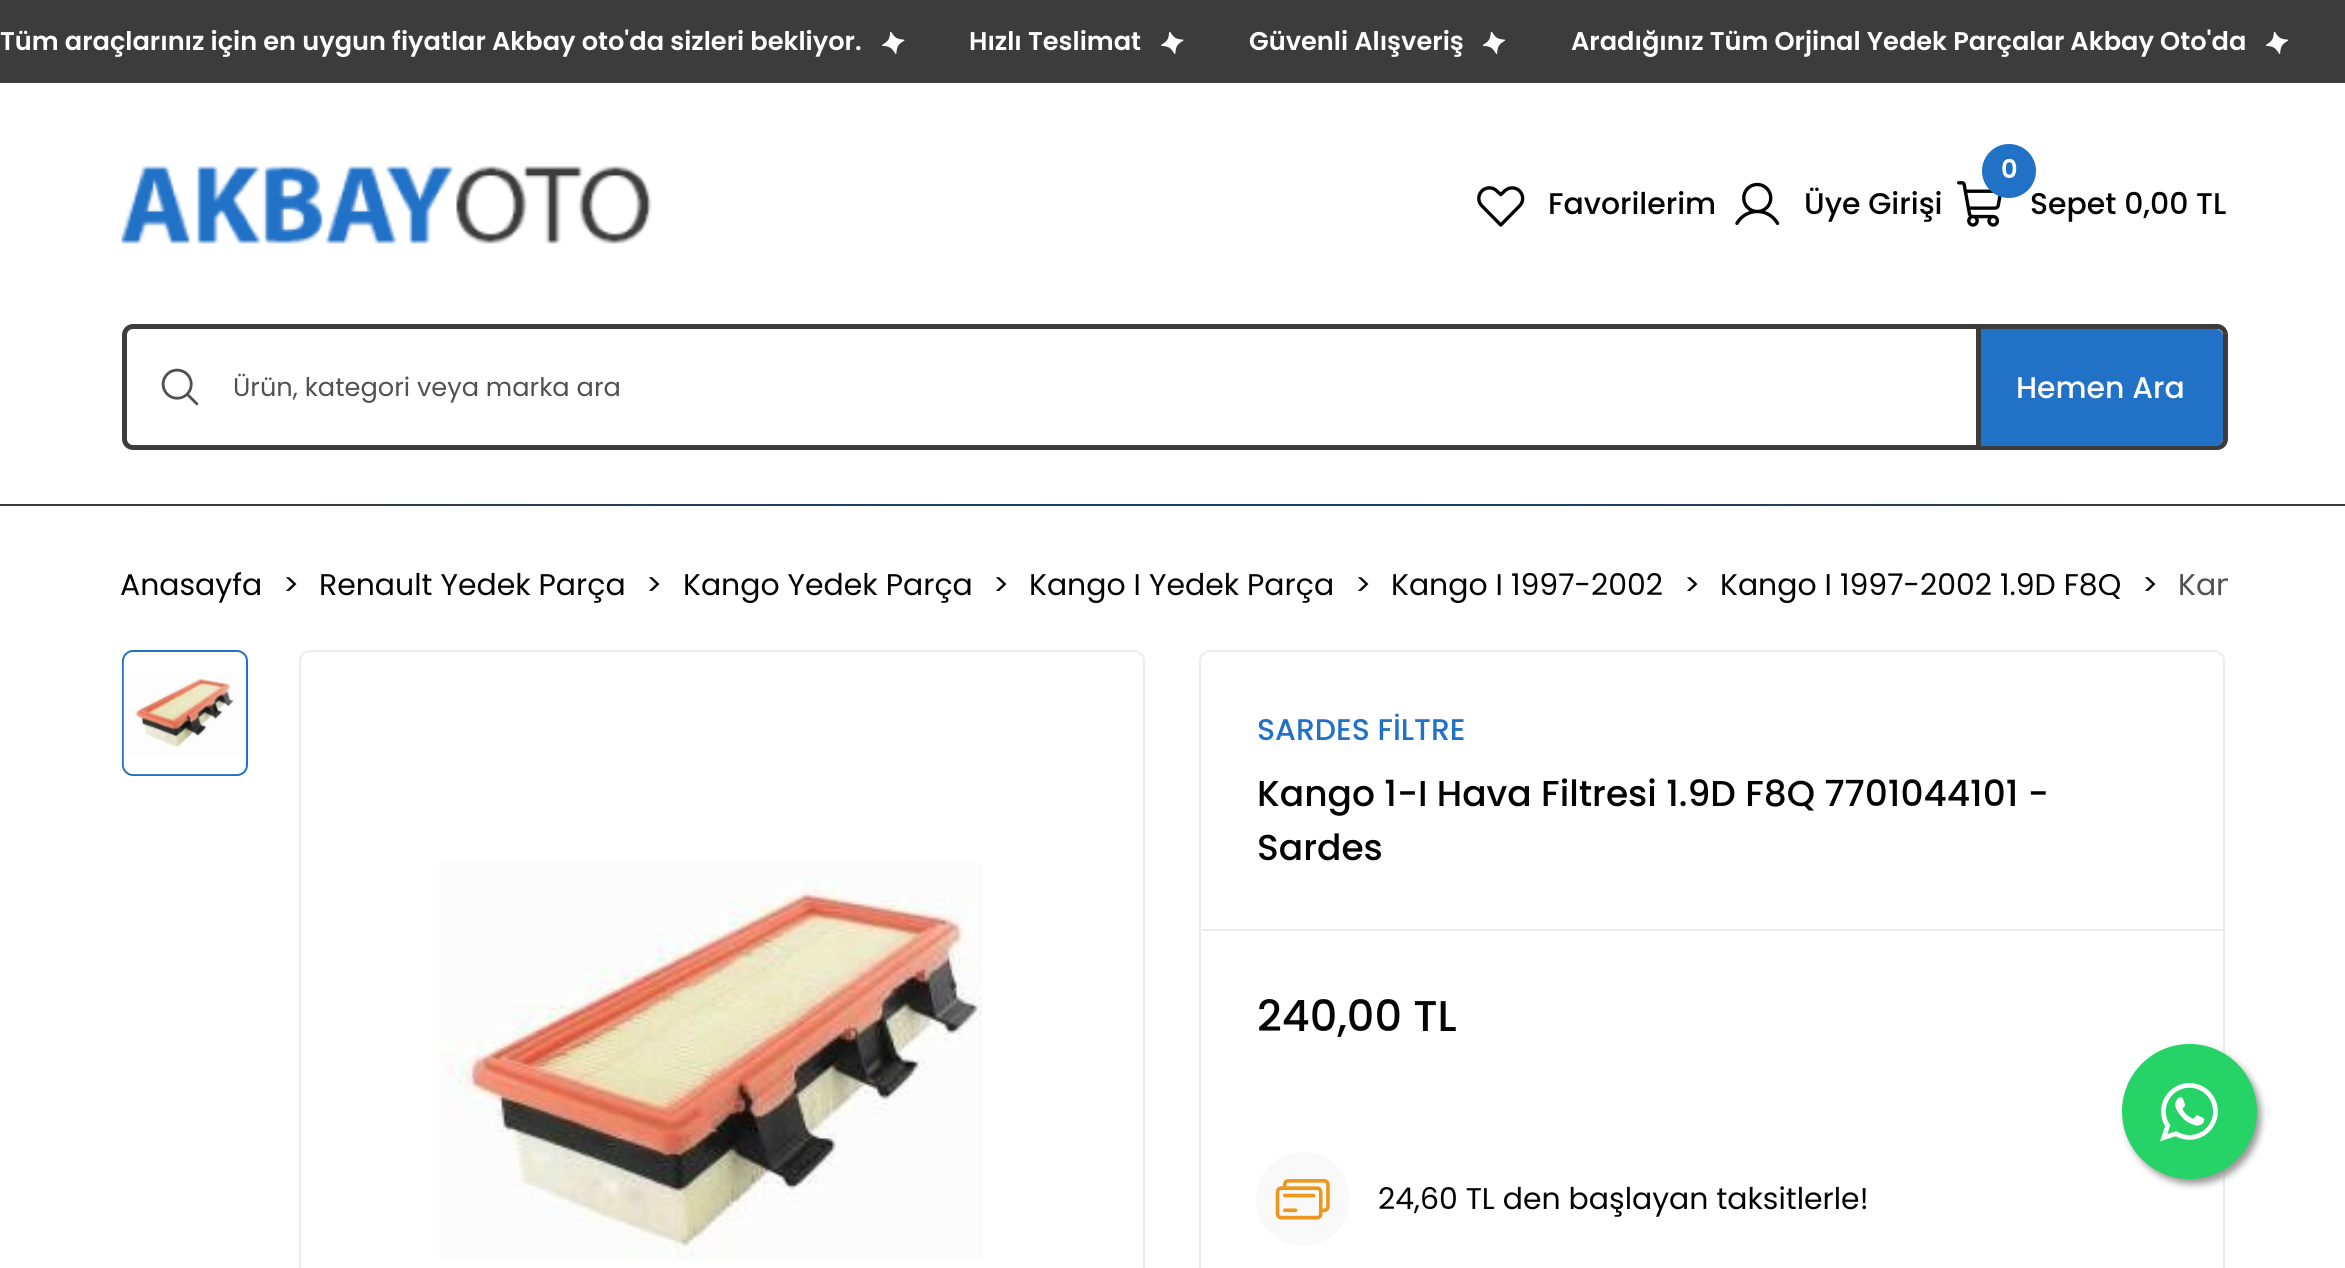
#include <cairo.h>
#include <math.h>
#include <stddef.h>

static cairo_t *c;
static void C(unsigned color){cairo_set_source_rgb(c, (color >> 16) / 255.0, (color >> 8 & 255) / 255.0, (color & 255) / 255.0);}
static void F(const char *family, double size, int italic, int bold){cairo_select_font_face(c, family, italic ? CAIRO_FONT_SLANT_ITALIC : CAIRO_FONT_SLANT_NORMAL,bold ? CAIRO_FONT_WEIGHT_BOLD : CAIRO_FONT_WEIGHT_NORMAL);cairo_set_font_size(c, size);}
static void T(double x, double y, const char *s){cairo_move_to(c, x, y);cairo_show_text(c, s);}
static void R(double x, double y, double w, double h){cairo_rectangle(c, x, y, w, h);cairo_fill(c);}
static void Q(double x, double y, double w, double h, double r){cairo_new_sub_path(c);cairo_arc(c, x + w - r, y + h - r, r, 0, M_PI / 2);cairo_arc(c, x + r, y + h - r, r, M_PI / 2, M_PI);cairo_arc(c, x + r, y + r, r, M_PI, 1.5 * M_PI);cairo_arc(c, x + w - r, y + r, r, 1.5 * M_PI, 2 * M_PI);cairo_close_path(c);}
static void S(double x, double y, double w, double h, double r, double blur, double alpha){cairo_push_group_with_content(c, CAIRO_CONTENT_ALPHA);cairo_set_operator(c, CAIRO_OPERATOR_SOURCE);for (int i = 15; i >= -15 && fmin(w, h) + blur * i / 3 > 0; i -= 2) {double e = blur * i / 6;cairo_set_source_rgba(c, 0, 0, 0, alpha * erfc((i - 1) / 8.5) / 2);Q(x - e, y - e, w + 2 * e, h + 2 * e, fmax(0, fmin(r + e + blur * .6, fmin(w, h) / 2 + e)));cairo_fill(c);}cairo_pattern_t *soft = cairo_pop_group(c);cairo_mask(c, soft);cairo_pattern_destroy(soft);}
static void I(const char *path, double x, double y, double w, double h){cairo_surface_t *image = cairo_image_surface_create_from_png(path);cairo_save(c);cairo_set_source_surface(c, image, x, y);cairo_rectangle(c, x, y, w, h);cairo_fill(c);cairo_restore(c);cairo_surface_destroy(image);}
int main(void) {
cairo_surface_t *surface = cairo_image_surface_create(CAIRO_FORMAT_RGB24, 2345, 1268);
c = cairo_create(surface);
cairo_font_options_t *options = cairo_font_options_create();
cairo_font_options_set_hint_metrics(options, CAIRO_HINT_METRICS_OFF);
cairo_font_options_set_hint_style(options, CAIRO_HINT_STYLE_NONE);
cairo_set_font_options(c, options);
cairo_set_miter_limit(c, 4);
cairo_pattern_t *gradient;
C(0xffffff);
cairo_paint(c);
C(0x3c3c3c);
R(0,0,2345,83);
F("Poppins SemiBold",25.65,0,0);
C(0xffffff);
T(0,50,"Tüm araçlarınız için en uygun fiyatlar Akbay oto'da sizleri bekliyor.");
I("1.png",882,32,23,22);
T(969,50,"Hızlı Teslimat");
I("1.png",1161,32,23,22);
T(1249,50,"Güvenli Alışveriş");
I("2.png",1483,32,22,22);
T(1571,50,"Aradığınız Tüm Orjinal Yedek Parçalar Akbay Oto'da");
I("2.png",2266,32,22,22);
I("3.png",121,166,531,78);
I("4.png",1477,186,48,41);
F("Poppins Medium",29.9,0,0);
C(0x040404);
T(1548,214,"Favorilerim");
I("5.png",1735,182,45,43);
T(1804,214,"Üye Girişi");
I("6.png",1957,181,45,46);
T(2030,214,"Sepet 0,00 TL");
C(0x2171c6);
cairo_new_path(c);
cairo_arc(c,2009,171,27,0,2 * M_PI);
cairo_fill(c);
F("Poppins SemiBold",25.65,0,0);
C(0xffffff);
T(2001,178,"0");
Q(124.5,326.5,2101,121,8.5);
C(0x3c3c3c);
cairo_set_line_width(c,5);
cairo_stroke(c);
I("7.png",161,368,38,38);
F("Poppins",25.65,0,0);
C(0x515151);
T(233,396,"Ürün, kategori veya marka ara");
C(0x2171c6);
cairo_new_path(c);
cairo_move_to(c,1976,329);
cairo_line_to(c,2216,329);
cairo_curve_to(c,2220,329,2223,332,2223,336);
cairo_line_to(c,2223,439);
cairo_curve_to(c,2223,443,2220,446,2216,446);
cairo_line_to(c,1976,446);
cairo_close_path(c);
cairo_fill(c);
C(0x3c3c3c);
R(1976,329,5,117);
F("Poppins Medium",29.9,0,0);
C(0xffffff);
T(2016,398,"Hemen Ara");
gradient = cairo_pattern_create_linear(0,505,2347,505);
cairo_pattern_add_color_stop_rgba(gradient,0,0.235,0.235,0.235,1);
cairo_pattern_add_color_stop_rgba(gradient,.53,0.075,0.255,0.447,1);
cairo_pattern_add_color_stop_rgba(gradient,1,0.235,0.235,0.235,1);
cairo_set_source(c,gradient);
cairo_pattern_destroy(gradient);
R(0,504,2345,2);
F("Poppins",29.9,0,0);
C(0x040404);
T(120,595,"Anasayfa");
T(283,595,">");
T(319,595,"Renault Yedek Parça");
T(646,595,">");
T(683,595,"Kango Yedek Parça");
T(993,595,">");
T(1029,595,"Kango I Yedek Parça");
T(1355,595,">");
T(1391,595,"Kango I 1997-2002");
T(1684,595,">");
T(1720,595,"Kango I 1997-2002 1.9D F8Q");
T(2142,595,">");
cairo_save(c);
cairo_rectangle(c,122,560,2106,63);
cairo_clip(c);
C(0x515151);
T(2178,595,"Kan");
cairo_restore(c);
Q(123,651,124,124,10);
C(0x2171c6);
cairo_set_line_width(c,2);
cairo_stroke(c);
I("8.png",123,652,117,123);
Q(300,651,844,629,10);
C(0xededed);
cairo_stroke(c);
I("9.png",439,862,544,398);
Q(1200,651,1024,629,10);
cairo_stroke(c);
R(1202,929,1021,2);
F("Poppins Medium",29.9,0,0);
C(0x2171c6);
T(1257,740,"SARDES FİLTRE");
F("Poppins Medium",36,0,0);
C(0x040404);
T(1257,806,"Kango 1-I Hava Filtresi 1.9D F8Q 7701044101 -");
T(1257,860,"Sardes");
F("Poppins Medium",43,0,0);
T(1257,1031,"240,00 TL");
I("10.png",1256,1152,94,94);
F("Poppins",29.9,0,0);
T(1378,1209,"24,60 TL den başlayan taksitlerle!");
C(0x999999);
S(2126,1049,135,135,67.5,3.5,1);
C(0x25d366);
cairo_arc(c,2189.5,1111.5,67.5,0,2 * M_PI);
cairo_fill(c);
I("11.png",2160,1083,58,59);
cairo_surface_write_to_png(surface, "o.png");
cairo_font_options_destroy(options);
cairo_destroy(c);
cairo_surface_destroy(surface);
return 0;
}
